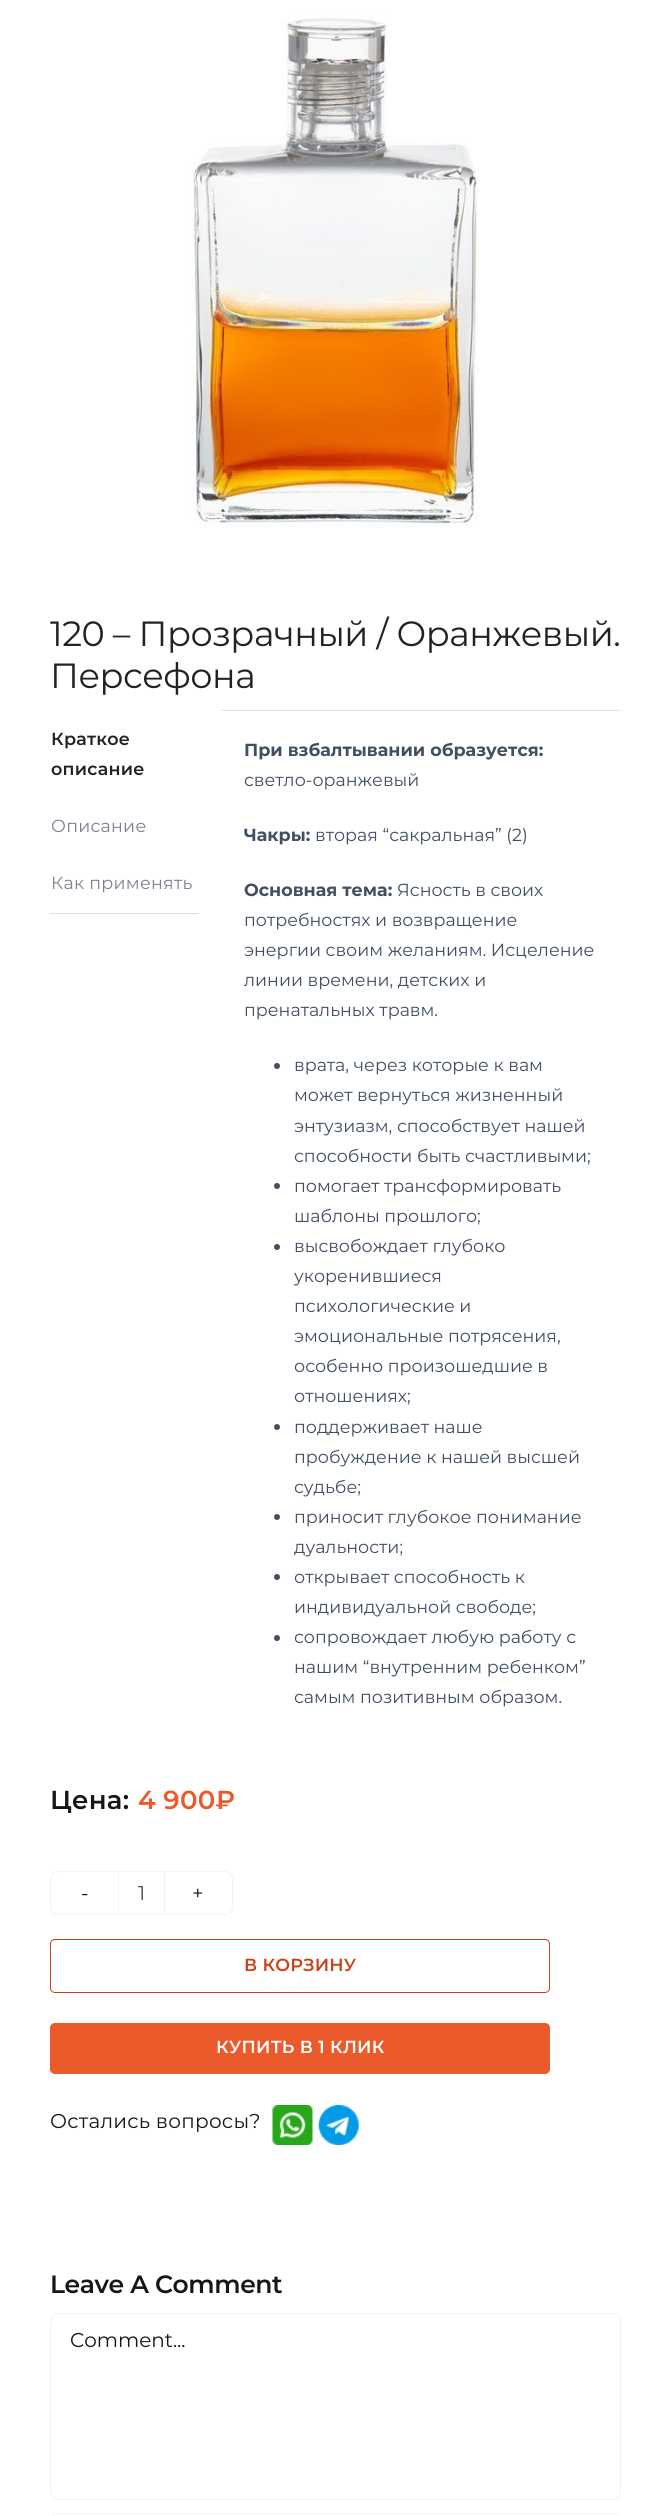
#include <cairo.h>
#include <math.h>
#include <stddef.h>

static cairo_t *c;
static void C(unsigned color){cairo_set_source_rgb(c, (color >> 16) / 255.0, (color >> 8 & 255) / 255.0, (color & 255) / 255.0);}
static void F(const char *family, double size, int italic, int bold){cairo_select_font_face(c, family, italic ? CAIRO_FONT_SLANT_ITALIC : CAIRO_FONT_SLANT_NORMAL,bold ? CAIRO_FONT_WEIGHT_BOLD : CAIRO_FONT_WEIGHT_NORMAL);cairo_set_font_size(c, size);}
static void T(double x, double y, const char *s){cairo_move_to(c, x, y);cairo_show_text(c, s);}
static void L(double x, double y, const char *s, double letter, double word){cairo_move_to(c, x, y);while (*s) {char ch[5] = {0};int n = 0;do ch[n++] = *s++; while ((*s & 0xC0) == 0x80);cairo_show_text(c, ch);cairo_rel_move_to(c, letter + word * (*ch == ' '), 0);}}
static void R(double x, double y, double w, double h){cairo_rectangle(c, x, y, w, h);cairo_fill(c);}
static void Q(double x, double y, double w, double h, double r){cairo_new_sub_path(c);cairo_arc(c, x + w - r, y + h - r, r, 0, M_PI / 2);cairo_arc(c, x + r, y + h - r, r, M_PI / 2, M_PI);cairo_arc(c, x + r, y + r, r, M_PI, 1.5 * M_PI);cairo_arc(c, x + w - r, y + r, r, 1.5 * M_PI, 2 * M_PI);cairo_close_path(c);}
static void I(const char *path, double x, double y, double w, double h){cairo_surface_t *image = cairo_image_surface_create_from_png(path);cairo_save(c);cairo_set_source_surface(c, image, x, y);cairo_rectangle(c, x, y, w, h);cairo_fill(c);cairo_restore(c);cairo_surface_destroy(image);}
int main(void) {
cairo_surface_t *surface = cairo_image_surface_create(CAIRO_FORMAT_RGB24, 671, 2516);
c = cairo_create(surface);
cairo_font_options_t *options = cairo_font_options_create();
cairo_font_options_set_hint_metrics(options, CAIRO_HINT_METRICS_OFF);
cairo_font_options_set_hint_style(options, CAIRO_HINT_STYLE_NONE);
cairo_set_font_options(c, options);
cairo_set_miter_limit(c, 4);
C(0xffffff);
cairo_paint(c);
I("1.png",191,15,288,513);
F("Montserrat",35,0,0);
C(0x222222);
L(50,646,"120 – Прозрачный / Оранжевый.",-.5,0);
L(50,688,"Персефона",-.5,0);
C(0xdddddd);
R(50,913,149,1);
F("Montserrat SemiBold",17.5,0,0);
C(0x222222);
L(51,745,"Краткое",.25,0);
L(51,775,"описание",.25,0);
F("Montserrat",17.5,0,0);
C(0x7a8391);
L(51,832,"Описание",.25,0);
L(51,889,"Как применять",.25,0);
C(0xe4e4e7);
R(221,710,400,1);
F("Montserrat",17.5,0,1);
C(0x424f62);
T(244,756,"При взбалтывании образуется:");
F("Montserrat",17.5,0,0);
T(244,786,"светло-оранжевый");
F("Montserrat",17.5,0,1);
T(244,841,"Чакры:");
F("Montserrat",17.5,0,0);
T(315,841,"вторая “сакральная” (2)");
F("Montserrat",17.5,0,1);
T(244,896,"Основная тема:");
F("Montserrat",17.5,0,0);
T(397,896,"Ясность в своих");
T(244,926,"потребностях и возвращение");
T(244,956,"энергии своим желаниям. Исцеление");
T(244,986,"линии времени, детских и");
T(244,1016,"пренатальных травм.");
cairo_new_path(c);
cairo_arc(c,277,1066,3,0,2 * M_PI);
cairo_fill(c);
T(294,1071,"врата, через которые к вам");
T(294,1101,"может вернуться жизненный");
T(294,1132,"энтузиазм, способствует нашей");
T(294,1162,"способности быть счастливыми;");
cairo_new_path(c);
cairo_arc(c,277,1186,3,0,2 * M_PI);
cairo_fill(c);
T(294,1192,"помогает трансформировать");
T(294,1222,"шаблоны прошлого;");
cairo_new_path(c);
cairo_arc(c,277,1247,3,0,2 * M_PI);
cairo_fill(c);
T(294,1252,"высвобождает глубоко");
T(294,1282,"укоренившиеся");
T(294,1312,"психологические и");
T(294,1342,"эмоциональные потрясения,");
T(294,1372,"особенно произошедшие в");
T(294,1402,"отношениях;");
cairo_new_path(c);
cairo_arc(c,277,1427,3,0,2 * M_PI);
cairo_fill(c);
T(294,1433,"поддерживает наше");
T(294,1463,"пробуждение к нашей высшей");
T(294,1493,"судьбе;");
cairo_new_path(c);
cairo_arc(c,277,1517,3,0,2 * M_PI);
cairo_fill(c);
T(294,1523,"приносит глубокое понимание");
T(294,1553,"дуальности;");
cairo_new_path(c);
cairo_arc(c,277,1577,3,0,2 * M_PI);
cairo_fill(c);
T(294,1583,"открывает способность к");
T(294,1613,"индивидуальной свободе;");
cairo_new_path(c);
cairo_arc(c,277,1638,3,0,2 * M_PI);
cairo_fill(c);
T(294,1643,"сопровождает любую работу с");
T(294,1673,"нашим “внутренним ребенком”");
T(294,1703,"самым позитивным образом.");
F("Montserrat SemiBold",26,0,0);
C(0x141617);
L(50,1809,"Цена:",.25,0);
C(0xea5a2a);
L(138,1809,"4 900₽",.25,0);
cairo_new_path(c);
cairo_move_to(c,58,1871.5);
cairo_line_to(c,118.5,1871.5);
cairo_line_to(c,118.5,1914.5);
cairo_line_to(c,58,1914.5);
cairo_curve_to(c,54,1914.5,50.5,1911,50.5,1907);
cairo_line_to(c,50.5,1879);
cairo_curve_to(c,50.5,1875,54,1871.5,58,1871.5);
cairo_close_path(c);
C(0xf2f3f5);
cairo_set_line_width(c,1);
cairo_stroke(c);
F("Montserrat",20,0,0);
C(0x141617);
T(81,1900,"-");
C(0xf2f3f5);
R(119,1871,45,1);
R(119,1914,45,1);
C(0x424f62);
T(138,1900,"1");
cairo_new_path(c);
cairo_move_to(c,164.5,1871.5);
cairo_line_to(c,225,1871.5);
cairo_curve_to(c,229,1871.5,232.5,1875,232.5,1879);
cairo_line_to(c,232.5,1907);
cairo_curve_to(c,232.5,1911,229,1914.5,225,1914.5);
cairo_line_to(c,164.5,1914.5);
cairo_close_path(c);
C(0xf2f3f5);
cairo_stroke(c);
C(0x141617);
T(192,1900,"+");
Q(50.5,1939.5,499,53,4.5);
C(0xcd4214);
cairo_stroke(c);
F("Montserrat SemiBold",17.5,0,0);
L(244,1971,"В КОРЗИНУ",.25,0);
C(0xea5a2a);
Q(50,2023,500,51,5);
cairo_fill(c);
C(0xffffff);
L(216,2053,"КУПИТЬ В 1 КЛИК",.25,0);
F("Montserrat",20,0,0);
C(0x141617);
L(50,2128,"Остались вопросы?",.25,0);
I("2.png",272,2105,41,40);
I("3.png",318,2105,41,40);
F("Montserrat SemiBold",25,0,0);
L(50,2293,"Leave A Comment",-.4,0);
Q(50.5,2313.5,570,186,7.5);
C(0xf2f3f5);
cairo_stroke(c);
F("Montserrat",20,0,0);
C(0x141617);
T(70,2347,"Comment...");
Q(50.5,2513.5,570,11,7.5);
C(0xf2f3f5);
cairo_stroke(c);
cairo_surface_write_to_png(surface, "o.png");
cairo_font_options_destroy(options);
cairo_destroy(c);
cairo_surface_destroy(surface);
return 0;
}
